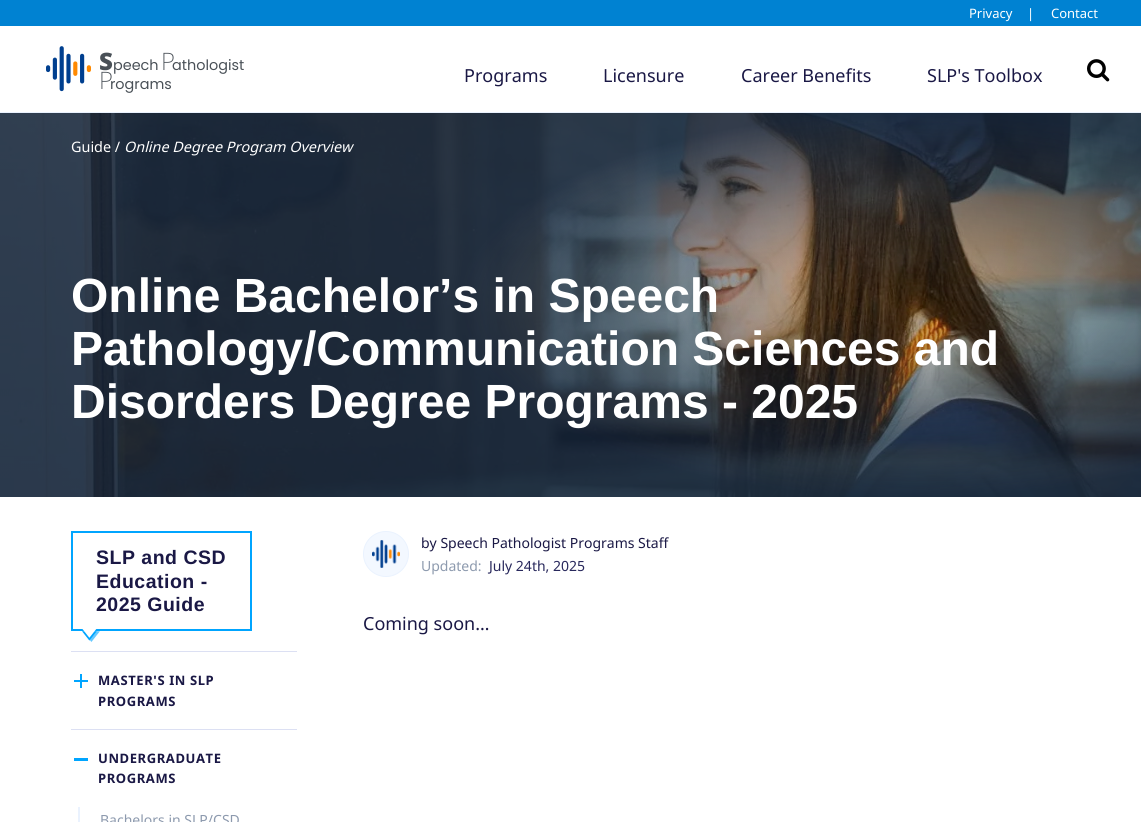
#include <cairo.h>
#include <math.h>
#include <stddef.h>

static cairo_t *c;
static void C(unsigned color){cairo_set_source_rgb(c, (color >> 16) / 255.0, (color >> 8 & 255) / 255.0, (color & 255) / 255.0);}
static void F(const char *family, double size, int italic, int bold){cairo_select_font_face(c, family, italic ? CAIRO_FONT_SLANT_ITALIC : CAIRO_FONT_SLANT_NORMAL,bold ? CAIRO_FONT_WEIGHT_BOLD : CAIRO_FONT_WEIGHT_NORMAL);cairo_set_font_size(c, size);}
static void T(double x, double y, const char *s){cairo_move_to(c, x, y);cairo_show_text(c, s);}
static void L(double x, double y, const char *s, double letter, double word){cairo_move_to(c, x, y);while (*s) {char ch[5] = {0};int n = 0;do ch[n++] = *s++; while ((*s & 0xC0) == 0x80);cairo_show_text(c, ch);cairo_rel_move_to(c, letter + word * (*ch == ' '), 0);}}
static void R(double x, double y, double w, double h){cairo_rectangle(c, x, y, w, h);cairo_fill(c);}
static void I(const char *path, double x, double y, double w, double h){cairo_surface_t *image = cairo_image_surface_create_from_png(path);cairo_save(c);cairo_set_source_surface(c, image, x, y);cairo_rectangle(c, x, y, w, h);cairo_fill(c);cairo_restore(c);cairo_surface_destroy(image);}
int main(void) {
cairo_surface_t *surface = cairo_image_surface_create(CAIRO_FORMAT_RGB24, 1141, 822);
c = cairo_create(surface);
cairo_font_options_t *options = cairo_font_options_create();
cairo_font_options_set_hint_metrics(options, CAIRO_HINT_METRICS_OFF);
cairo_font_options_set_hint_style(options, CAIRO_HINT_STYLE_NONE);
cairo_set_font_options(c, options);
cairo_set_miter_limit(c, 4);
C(0xffffff);
cairo_paint(c);
C(0x0082d2);
R(0,0,1141,26);
F("Noto Sans",13,0,0);
C(0xffffff);
T(969,18,"Privacy");
T(1027,18,"|");
T(1051,18,"Contact");
C(0xeaf2fe);
R(0,112,1141,1);
I("1.png",46,46,45,46);
F("Noto Sans Black",24,0,0);
C(0x495057);
T(99,70,"S");
F("Poppins",14.4,0,0);
T(113,70,"peech");
F("Noto Sans ExtraLight",24,0,0);
T(161,70,"P");
F("Poppins",14.4,0,0);
T(172,70,"athologist");
F("Noto Sans ExtraLight",24,0,0);
T(99,89,"P");
F("Poppins",14.4,0,0);
T(110,89,"rograms");
F("Noto Sans",18,0,0);
C(0x1a1845);
T(464,82,"Programs");
T(603,82,"Licensure");
T(741,82,"Career Benefits");
T(927,82,"SLP's Toolbox");
I("2.png",1087,59,23,23);
I("3.png",0,113,1141,384);
F("Noto Sans",14.4,0,0);
C(0xffffff);
T(71,152,"Guide /");
F("Noto Sans",14.4,1,0);
T(124,152,"Online Degree Program Overview");
F("Liberation Sans",48,0,1);
T(71,312,"Online Bachelor’s in Speech");
T(71,365,"Pathology/Communication Sciences and");
T(71,418,"Disorders Degree Programs - 2025");
cairo_rectangle(c,72,532,179,98);
C(0x00a5ff);
cairo_stroke(c);
F("Liberation Sans",19.5,0,1);
C(0x1a1845);
L(96,564,"SLP and CSD",.5,0);
L(96,588,"Education -",.5,0);
L(96,611,"2025 Guide",.5,0);
I("4.png",82,629,18,13);
C(0xdce0f3);
R(71,651,226,1);
R(71,729,226,1);
C(0x00a5ff);
R(80,674,2,14);
R(74,680,14,2);
F("Noto Sans",13,0,1);
C(0x1a1845);
L(98,685,"MASTER'S IN SLP",.6,0);
L(98,706,"PROGRAMS",.6,0);
C(0x00a5ff);
R(74,758,14,3);
C(0x1a1845);
L(98,763,"UNDERGRADUATE",.6,0);
L(98,783,"PROGRAMS",.6,0);
C(0xeaf2fe);
R(78,807,2,15);
F("Noto Sans",14,0,0);
C(0x8d9aae);
T(100,825,"Bachelors in SLP/CSD");
C(0xf3f8ff);
cairo_new_path(c);
cairo_arc(c,386,554,22.5,0,2 * M_PI);
cairo_fill_preserve(c);
C(0xeaf2fe);
cairo_set_line_width(c,1);
cairo_stroke(c);
I("5.png",372,540,28,28);
C(0x1a1845);
T(421,548,"by Speech Pathologist Programs Staff");
C(0x8d9aae);
T(421,571,"Updated:");
C(0x28285c);
T(489,571,"July 24th, 2025");
F("Noto Sans",18,0,0);
C(0x1a1845);
T(363,630,"Coming soon…");
cairo_surface_write_to_png(surface, "o.png");
cairo_font_options_destroy(options);
cairo_destroy(c);
cairo_surface_destroy(surface);
return 0;
}
